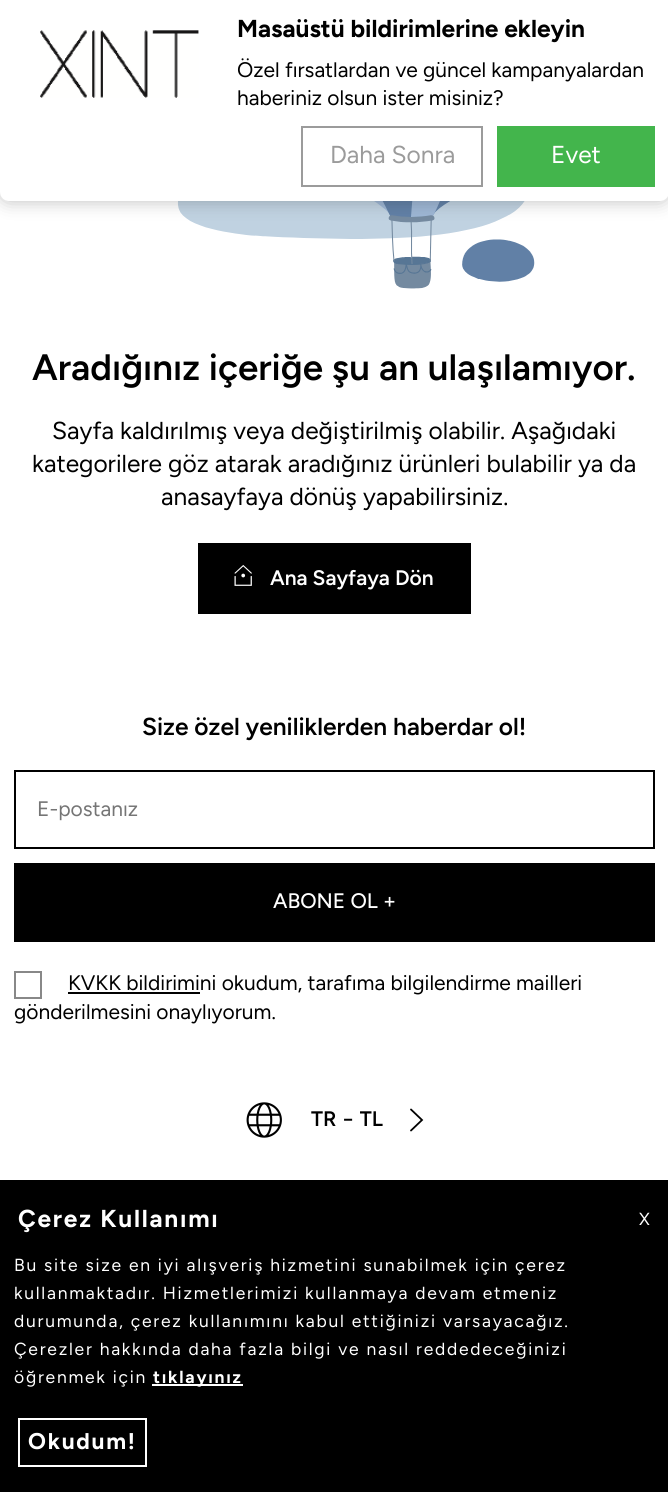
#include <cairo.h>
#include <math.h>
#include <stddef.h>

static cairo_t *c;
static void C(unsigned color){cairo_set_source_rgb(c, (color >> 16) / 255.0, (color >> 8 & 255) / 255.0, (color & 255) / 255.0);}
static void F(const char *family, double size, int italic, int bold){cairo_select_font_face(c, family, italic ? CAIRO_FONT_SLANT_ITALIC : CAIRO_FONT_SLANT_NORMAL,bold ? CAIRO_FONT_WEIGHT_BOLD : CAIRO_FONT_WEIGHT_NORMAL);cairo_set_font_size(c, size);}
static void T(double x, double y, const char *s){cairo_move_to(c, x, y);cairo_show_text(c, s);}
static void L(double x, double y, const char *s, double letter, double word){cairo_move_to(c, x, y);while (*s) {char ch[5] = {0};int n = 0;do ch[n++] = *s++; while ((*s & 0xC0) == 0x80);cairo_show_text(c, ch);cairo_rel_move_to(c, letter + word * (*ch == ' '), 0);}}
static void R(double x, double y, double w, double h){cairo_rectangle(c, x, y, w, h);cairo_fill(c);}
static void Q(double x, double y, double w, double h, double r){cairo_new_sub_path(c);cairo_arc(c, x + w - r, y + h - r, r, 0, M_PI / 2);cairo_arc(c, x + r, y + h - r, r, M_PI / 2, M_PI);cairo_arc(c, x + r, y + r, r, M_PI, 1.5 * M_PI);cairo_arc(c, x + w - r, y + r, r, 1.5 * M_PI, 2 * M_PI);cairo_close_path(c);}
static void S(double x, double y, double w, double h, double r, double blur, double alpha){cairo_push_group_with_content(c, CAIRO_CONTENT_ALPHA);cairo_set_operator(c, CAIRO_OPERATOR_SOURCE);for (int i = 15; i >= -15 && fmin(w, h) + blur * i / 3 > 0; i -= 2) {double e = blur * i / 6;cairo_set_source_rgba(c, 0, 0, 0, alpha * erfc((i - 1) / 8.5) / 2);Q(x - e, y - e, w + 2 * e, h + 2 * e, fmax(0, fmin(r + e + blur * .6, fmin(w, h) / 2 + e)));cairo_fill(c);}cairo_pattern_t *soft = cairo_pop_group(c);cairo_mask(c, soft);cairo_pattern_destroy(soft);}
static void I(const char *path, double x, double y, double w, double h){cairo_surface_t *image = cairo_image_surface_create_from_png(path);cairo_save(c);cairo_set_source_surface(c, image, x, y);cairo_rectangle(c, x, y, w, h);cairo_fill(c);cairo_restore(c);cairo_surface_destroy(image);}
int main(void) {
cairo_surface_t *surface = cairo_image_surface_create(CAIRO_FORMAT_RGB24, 668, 1492);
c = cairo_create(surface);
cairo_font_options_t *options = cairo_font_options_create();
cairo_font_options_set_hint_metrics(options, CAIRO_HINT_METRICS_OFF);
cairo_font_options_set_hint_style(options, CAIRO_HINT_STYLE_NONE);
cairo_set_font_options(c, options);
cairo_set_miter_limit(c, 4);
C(0xffffff);
cairo_paint(c);
I("2.png",177,201,358,88);
C(0x282828);
S(0,0,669,201,9,9,.3);
C(0xffffff);
cairo_new_path(c);
cairo_move_to(c,0,0);
cairo_line_to(c,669,0);
cairo_line_to(c,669,192);
cairo_curve_to(c,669,197,665,201,660,201);
cairo_line_to(c,9,201);
cairo_curve_to(c,4,201,0,197,0,192);
cairo_close_path(c);
cairo_fill(c);
I("1.png",40,30,159,68);
F("Figtree",24.5,0,1);
C(0x000000);
T(237,37,"Masaüstü bildirimlerine ekleyin");
F("Figtree",21,0,0);
T(237,77,"Özel fırsatlardan ve güncel kampanyalardan");
T(237,105,"haberiniz olsun ister misiniz?");
cairo_rectangle(c,302,127,180,59);
C(0x9b9b9b);
cairo_stroke(c);
F("Figtree",24.5,0,0);
T(330,163,"Daha Sonra");
C(0x43b54c);
R(497,126,158,61);
C(0xffffff);
T(551,163,"Evet");
F("Figtree SemiBold",36.75,0,0);
C(0x000000);
T(32,380,"Aradığınız içeriğe şu an ulaşılamıyor.");
F("Figtree",24.5,0,0);
T(52,439,"Sayfa kaldırılmış veya değiştirilmiş olabilir. Aşağıdaki");
T(32,472,"kategorilere göz atarak aradığınız ürünleri bulabilir ya da");
T(161,505,"anasayfaya dönüş yapabilirsiniz.");
R(198,543,273,71);
I("3.png",234,565,18,21);
F("Figtree SemiBold",21,0,0);
C(0xffffff);
T(270,585,"Ana Sayfaya Dön");
F("Figtree SemiBold",24.5,0,0);
C(0x000000);
T(142,735,"Size özel yeniliklerden haberdar ol!");
cairo_rectangle(c,15,771,639,77);
cairo_stroke(c);
F("Figtree",21,0,0);
C(0x757575);
T(37,816,"E-postanız");
C(0x000000);
R(14,863,641,79);
F("Figtree Medium",21,0,0);
C(0xffffff);
T(273,908,"ABONE OL +");
cairo_rectangle(c,15,972,26,26);
C(0x888888);
cairo_stroke(c);
C(0x000000);
R(68,992,132,2);
F("Figtree",21,0,0);
T(68,990,"KVKK bildirimini okudum, tarafıma bilgilendirme mailleri");
T(14,1019,"gönderilmesini onaylıyorum.");
I("4.png",246,1102,36,36);
F("Figtree SemiBold",21,0,0);
T(311,1126,"TR − TL");
cairo_new_path(c);
cairo_move_to(c,411,1109.5);
cairo_line_to(c,422,1120);
cairo_line_to(c,411,1130.5);
cairo_set_line_width(c,1.8);
cairo_set_line_cap(c,CAIRO_LINE_CAP_ROUND);
cairo_stroke(c);
R(0,1180,668,312);
F("Figtree",24.5,0,1);
C(0xffffff);
L(18,1227,"Çerez Kullanımı",1.75,0);
F("Figtree",17.5,0,0);
L(639,1225,"X",1.75,0);
L(14,1271,"Bu site size en iyi alışveriş hizmetini sunabilmek için çerez",1.75,0);
L(14,1299,"kullanmaktadır. Hizmetlerimizi kullanmaya devam etmeniz",1.75,0);
L(14,1327,"durumunda, çerez kullanımını kabul ettiğinizi varsayacağız.",1.75,0);
L(14,1355,"Çerezler hakkında daha fazla bilgi ve nasıl reddedeceğinizi",1.75,0);
L(14,1383,"öğrenmek için",1.75,0);
R(152,1384,91,2);
F("Figtree",17.5,0,1);
L(153,1383,"tıklayınız",1.75,0);
cairo_rectangle(c,19,1419,127,47);
cairo_set_line_width(c,2);
cairo_set_line_cap(c,CAIRO_LINE_CAP_BUTT);
cairo_stroke(c);
F("Figtree",22.75,0,1);
L(28,1449,"Okudum!",1.75,0);
cairo_surface_write_to_png(surface, "o.png");
cairo_font_options_destroy(options);
cairo_destroy(c);
cairo_surface_destroy(surface);
return 0;
}
